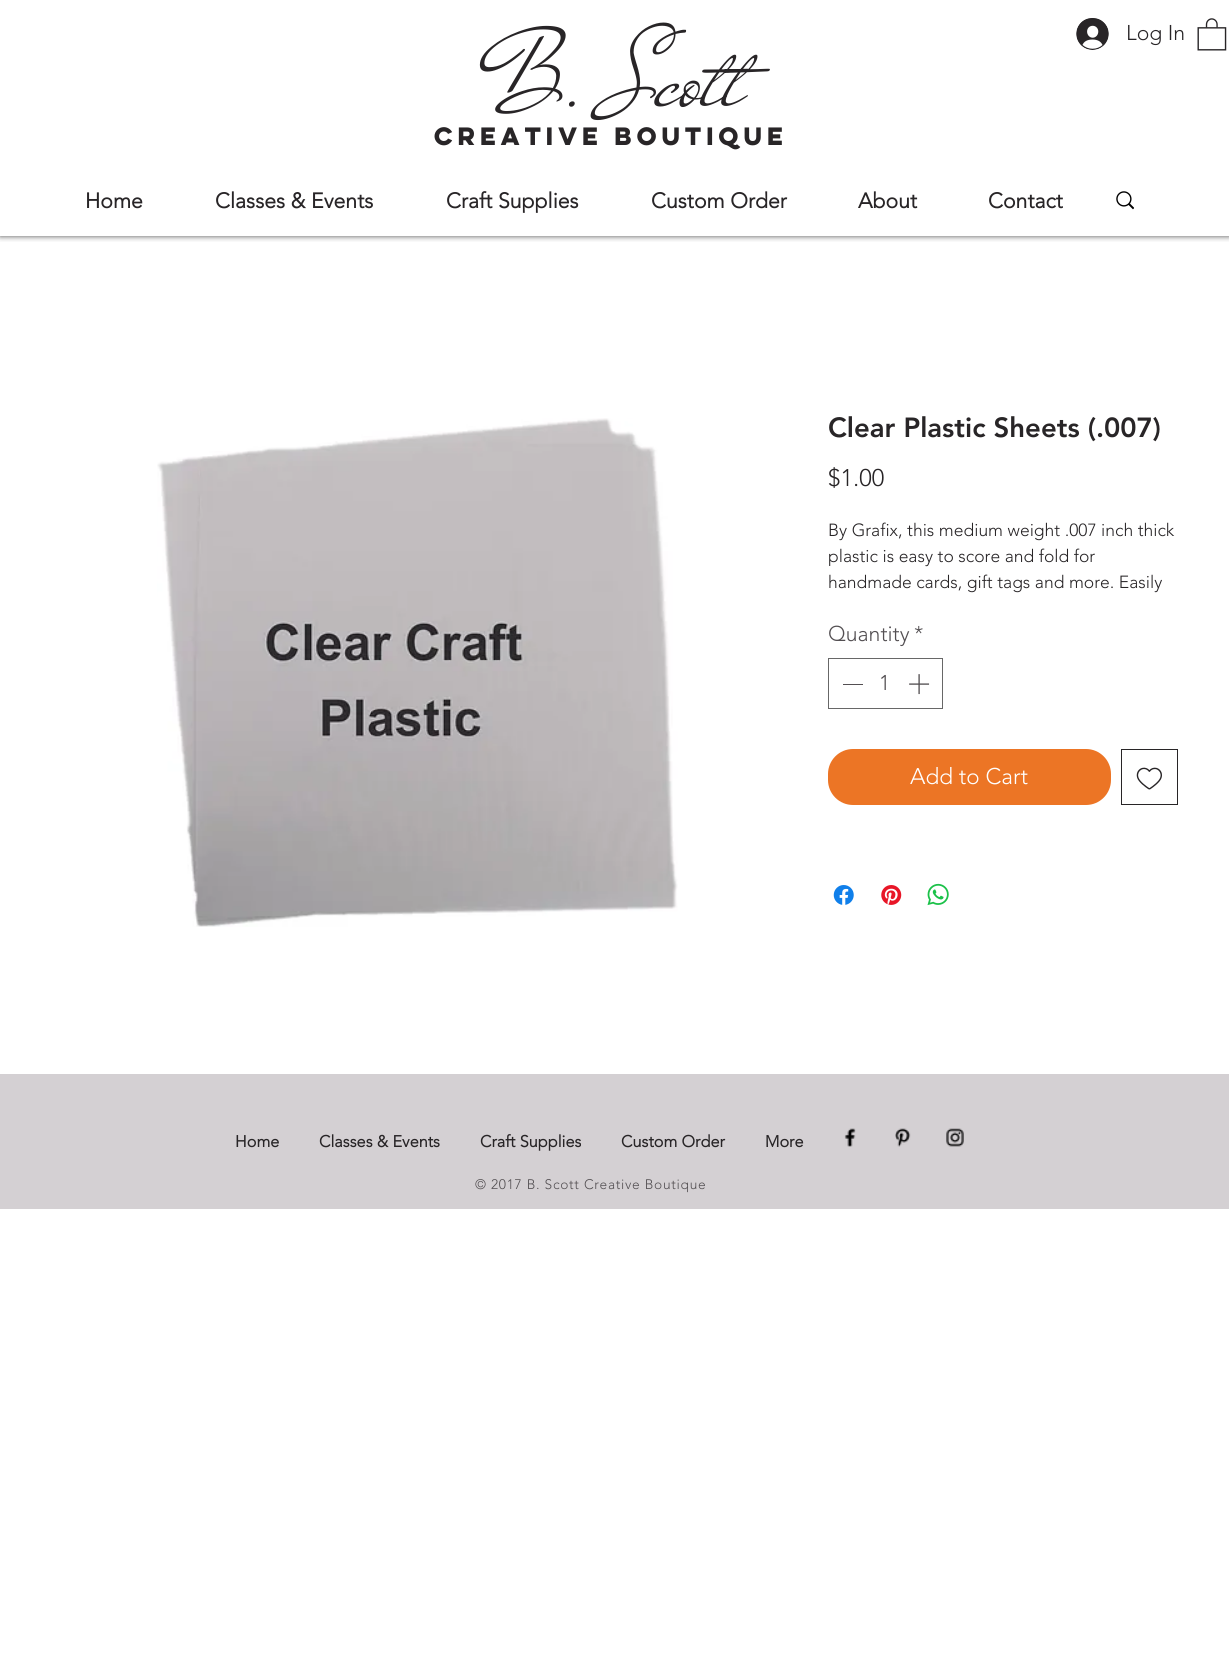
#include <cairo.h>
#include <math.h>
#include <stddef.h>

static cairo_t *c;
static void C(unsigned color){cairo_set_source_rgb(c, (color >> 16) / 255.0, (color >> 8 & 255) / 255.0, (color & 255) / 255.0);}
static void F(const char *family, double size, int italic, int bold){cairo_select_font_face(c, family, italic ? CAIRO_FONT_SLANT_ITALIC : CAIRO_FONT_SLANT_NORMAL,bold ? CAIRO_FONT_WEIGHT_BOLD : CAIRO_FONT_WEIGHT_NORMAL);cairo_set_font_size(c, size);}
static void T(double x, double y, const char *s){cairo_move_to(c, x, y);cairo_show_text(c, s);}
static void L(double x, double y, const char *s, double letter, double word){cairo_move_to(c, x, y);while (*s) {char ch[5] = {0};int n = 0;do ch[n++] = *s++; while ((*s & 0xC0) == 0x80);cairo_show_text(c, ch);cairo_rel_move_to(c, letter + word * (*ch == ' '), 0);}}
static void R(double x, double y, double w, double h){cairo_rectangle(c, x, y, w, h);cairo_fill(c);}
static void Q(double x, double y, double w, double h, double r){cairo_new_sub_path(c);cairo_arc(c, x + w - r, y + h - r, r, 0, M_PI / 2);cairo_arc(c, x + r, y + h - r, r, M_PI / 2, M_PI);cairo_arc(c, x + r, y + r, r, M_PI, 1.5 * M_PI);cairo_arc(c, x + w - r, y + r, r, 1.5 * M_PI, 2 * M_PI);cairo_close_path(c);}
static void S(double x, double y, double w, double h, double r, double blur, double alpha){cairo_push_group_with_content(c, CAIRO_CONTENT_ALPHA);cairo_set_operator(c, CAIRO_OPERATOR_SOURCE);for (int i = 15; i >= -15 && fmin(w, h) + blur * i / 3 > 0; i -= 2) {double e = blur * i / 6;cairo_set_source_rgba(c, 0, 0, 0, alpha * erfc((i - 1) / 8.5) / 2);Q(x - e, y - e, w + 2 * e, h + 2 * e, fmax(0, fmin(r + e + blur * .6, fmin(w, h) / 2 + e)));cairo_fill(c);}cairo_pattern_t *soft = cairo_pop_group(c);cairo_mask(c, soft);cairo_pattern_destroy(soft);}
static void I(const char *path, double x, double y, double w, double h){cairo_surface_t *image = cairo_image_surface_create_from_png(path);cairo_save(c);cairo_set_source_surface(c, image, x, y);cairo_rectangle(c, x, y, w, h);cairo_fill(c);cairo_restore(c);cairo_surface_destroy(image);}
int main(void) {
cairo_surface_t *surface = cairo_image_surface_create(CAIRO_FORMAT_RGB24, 1229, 1675);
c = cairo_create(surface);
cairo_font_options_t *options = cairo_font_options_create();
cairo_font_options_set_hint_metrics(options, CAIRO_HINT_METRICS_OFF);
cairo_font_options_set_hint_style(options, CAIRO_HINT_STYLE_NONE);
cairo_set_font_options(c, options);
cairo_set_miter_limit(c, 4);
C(0xffffff);
cairo_paint(c);
cairo_save(c);
cairo_rectangle(c,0,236,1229,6);
cairo_clip(c);
C(0x000000);
S(0,0,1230,236,0,3,.7);
cairo_restore(c);
F("Mr De Haviland",107.5,0,0);
C(0x282527);
T(486,105,"B. Scott");
I("1.png",1076,18,33,32);
F("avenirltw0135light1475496 Light",21.25,0,0);
T(1126,40,"Log In");
I("2.png",1197,18,30,33);
F("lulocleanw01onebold",22.5,0,1);
T(434,145,"creative boutique");
F("avenirltw0135light1475496",21.25,0,1);
T(85,208,"Home");
T(215,208,"Classes & Events");
T(446,208,"Craft Supplies");
T(651,208,"Custom Order");
T(858,208,"About");
T(988,208,"Contact");
I("3.png",1116,191,18,19);
I("4.png",157,418,521,509);
F("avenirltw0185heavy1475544 Black",27.5,0,0);
T(828,437,"Clear Plastic Sheets (.007)");
F("avenirltw0135light1475496 Light",24,0,0);
T(828,486,"$1.00");
F("avenirltw0135light1475496 Light",17.5,0,0);
T(828,536,"By Grafix, this medium weight .007 inch thick");
T(828,562,"plastic is easy to score and fold for");
T(828,588,"handmade cards, gift tags and more. Easily");
F("avenirltw0135light1475496 Light",21.25,0,0);
C(0x534f52);
T(828,641,"Quantity");
T(914,641,"*");
cairo_rectangle(c,828.5,658.5,114,50);
C(0x676767);
cairo_set_line_width(c,1);
cairo_stroke(c);
C(0x534f52);
R(843,684,20,1);
T(879,690,"1");
I("5.png",909,674,21,21);
C(0xec7525);
Q(828,749,283,56,25);
cairo_fill(c);
F("avenirltw0135light1475496 Light",22.5,0,0);
C(0xffffff);
T(910,784,"Add to Cart");
cairo_rectangle(c,1121.5,749.5,56,55);
C(0x282527);
cairo_stroke(c);
I("6.png",1136,767,26,23);
I("7.png",833,885,21,20);
I("8.png",881,885,21,20);
I("9.png",927,883,22,23);
C(0xd4d0d3);
R(0,1074,1229,135);
F("avenirltw0135light1475496",16.25,0,1);
C(0x282527);
T(235,1147,"Home");
T(319,1147,"Classes & Events");
T(480,1147,"Craft Supplies");
T(621,1147,"Custom Order");
T(765,1147,"More");
I("10.png",844,1128,12,19);
I("11.png",895,1128,16,19);
I("12.png",946,1128,18,19);
F("avenirltw0135light1475496 Light",13.75,0,0);
C(0x534f52);
L(475,1189,"© 2017 B. Scott Creative Boutique",.7,0);
cairo_surface_write_to_png(surface, "o.png");
cairo_font_options_destroy(options);
cairo_destroy(c);
cairo_surface_destroy(surface);
return 0;
}
